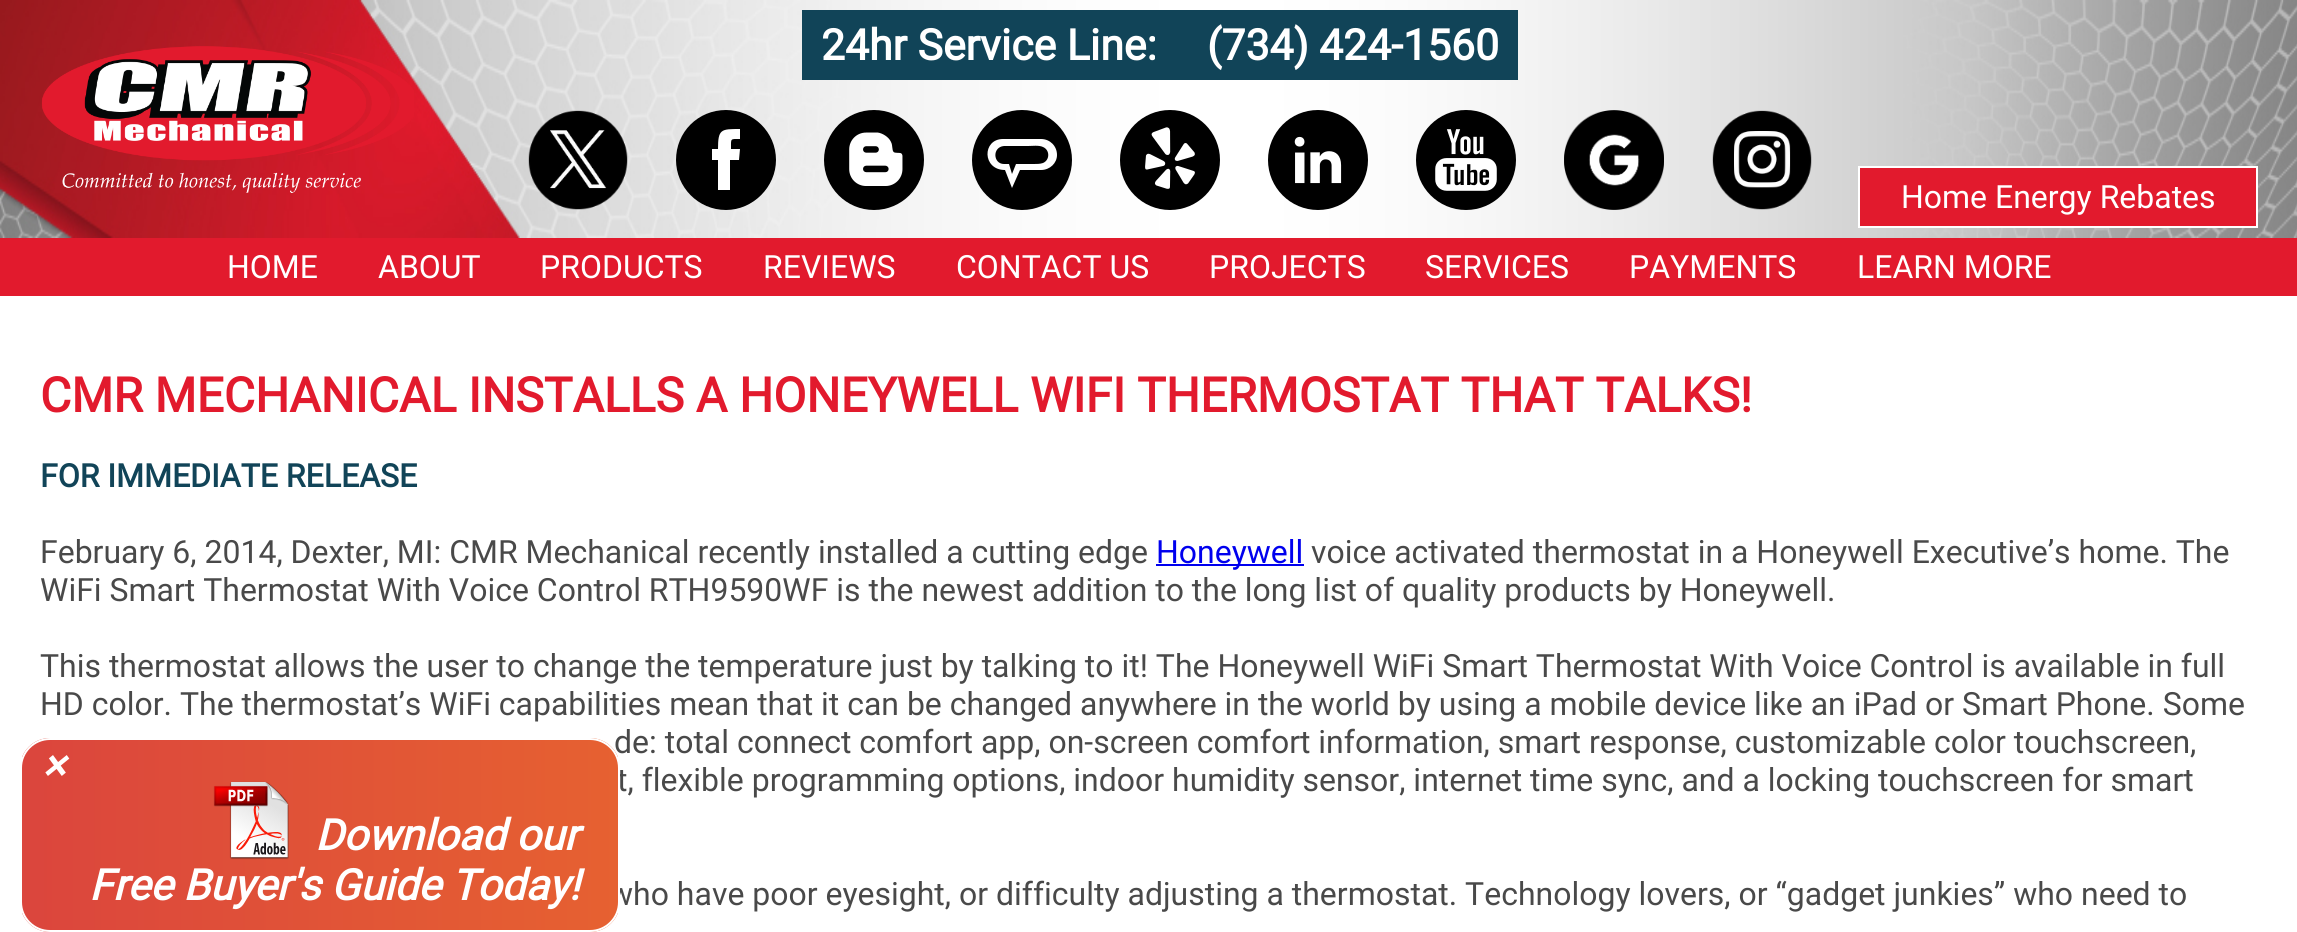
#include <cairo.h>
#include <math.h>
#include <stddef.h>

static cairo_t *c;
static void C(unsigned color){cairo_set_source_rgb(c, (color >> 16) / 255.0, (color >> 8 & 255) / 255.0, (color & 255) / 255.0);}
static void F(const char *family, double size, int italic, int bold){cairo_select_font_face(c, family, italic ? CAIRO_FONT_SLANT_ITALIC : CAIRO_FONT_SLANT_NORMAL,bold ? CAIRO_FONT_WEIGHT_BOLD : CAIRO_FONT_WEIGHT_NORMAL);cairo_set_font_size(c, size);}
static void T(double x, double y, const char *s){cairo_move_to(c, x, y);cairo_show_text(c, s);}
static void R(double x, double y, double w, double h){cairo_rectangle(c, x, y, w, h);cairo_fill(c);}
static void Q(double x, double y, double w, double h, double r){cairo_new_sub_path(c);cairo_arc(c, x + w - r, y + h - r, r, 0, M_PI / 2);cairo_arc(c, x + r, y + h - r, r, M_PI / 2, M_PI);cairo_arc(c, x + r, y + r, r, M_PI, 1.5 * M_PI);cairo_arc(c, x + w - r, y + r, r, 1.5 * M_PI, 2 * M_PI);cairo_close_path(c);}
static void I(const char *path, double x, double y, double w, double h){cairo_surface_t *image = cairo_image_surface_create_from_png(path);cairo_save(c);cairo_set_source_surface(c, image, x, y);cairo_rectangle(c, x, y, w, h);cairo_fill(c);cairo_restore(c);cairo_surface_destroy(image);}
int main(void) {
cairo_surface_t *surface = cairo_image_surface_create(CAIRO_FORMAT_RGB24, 2297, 932);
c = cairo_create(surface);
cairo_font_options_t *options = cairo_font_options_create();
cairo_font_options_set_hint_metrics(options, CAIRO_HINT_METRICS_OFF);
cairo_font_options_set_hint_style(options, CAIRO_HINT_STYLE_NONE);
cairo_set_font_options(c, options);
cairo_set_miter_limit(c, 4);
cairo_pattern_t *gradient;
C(0xffffff);
cairo_paint(c);
I("1.png",0,0,2297,238);
I("2.png",41,46,373,147);
C(0x114458);
R(802,10,716,70);
F("Roboto",42.75,0,1);
C(0xffffff);
T(821,60,"24hr Service Line:");
T(1207,60,"(734) 424-1560");
I("3.png",528,110,100,100);
cairo_arc(c,726,160,50,0,2 * M_PI);
cairo_fill(c);
C(0x000000);
cairo_new_path(c);
cairo_move_to(c,726,110);
cairo_curve_to(c,698,110,676,132,676,160);
cairo_curve_to(c,676,187,698,210,726,210);
cairo_curve_to(c,753,210,776,187,776,160);
cairo_curve_to(c,776,132,753,110,726,110);
cairo_close_path(c);
cairo_move_to(c,739,160);
cairo_line_to(c,730,160);
cairo_line_to(c,730,190);
cairo_line_to(c,718,190);
cairo_line_to(c,718,160);
cairo_line_to(c,712,160);
cairo_line_to(c,712,149);
cairo_line_to(c,718,149);
cairo_curve_to(c,718,129,721,129,740,129);
cairo_line_to(c,740,139);
cairo_curve_to(c,730,139,731,138,731,149);
cairo_line_to(c,740,149);
cairo_close_path(c);
cairo_fill(c);
I("4.png",824,110,100,100);
cairo_arc(c,1022,160,50,0,2 * M_PI);
cairo_fill(c);
C(0xffffff);
cairo_new_path(c);
cairo_move_to(c,1003,139);
cairo_line_to(c,1041,139);
cairo_curve_to(c,1050,139,1057,146,1057,155);
cairo_curve_to(c,1057,163,1050,170,1041,170);
cairo_line_to(c,1020,170);
cairo_line_to(c,1012,188);
cairo_line_to(c,1005,170);
cairo_curve_to(c,982,170,982,139,1003,139);
cairo_close_path(c);
cairo_fill(c);
C(0x000000);
cairo_new_path(c);
cairo_move_to(c,1004,164);
cairo_line_to(c,1009,164);
cairo_line_to(c,1012,174);
cairo_line_to(c,1016,164);
cairo_line_to(c,1034,164);
cairo_curve_to(c,1037,164,1040,164,1043,163);
cairo_curve_to(c,1050,160,1050,150,1043,147);
cairo_curve_to(c,1039,145,1032,146,1028,146);
cairo_line_to(c,1004,146);
cairo_curve_to(c,992,147,993,164,1004,164);
cairo_close_path(c);
cairo_fill(c);
I("5.png",1120,110,100,100);
I("6.png",1268,110,100,100);
I("7.png",1416,110,100,100);
I("8.png",1564,110,100,100);
I("9.png",1712,110,100,100);
C(0xe21a2d);
cairo_rectangle(c,1859,167,398,60);
cairo_fill_preserve(c);
C(0xffffff);
cairo_stroke(c);
F("Roboto",32,0,0);
T(1901,208,"Home Energy Rebates");
C(0xe21a2d);
R(0,238,2297,58);
C(0xffffff);
T(227,278,"HOME");
T(378,278,"ABOUT");
T(540,278,"PRODUCTS");
T(763,278,"REVIEWS");
T(956,278,"CONTACT US");
T(1209,278,"PROJECTS");
T(1425,278,"SERVICES");
T(1629,278,"PAYMENTS");
T(1857,278,"LEARN MORE");
F("Roboto",48,0,1);
C(0xe21a2d);
T(40,412,"CMR MECHANICAL INSTALLS A HONEYWELL WIFI THERMOSTAT THAT TALKS!");
F("Roboto",32,0,1);
C(0x114458);
T(40,487,"FOR IMMEDIATE RELEASE");
F("Roboto",32,0,0);
C(0x494949);
T(40,563,"February 6, 2014, Dexter, MI: CMR Mechanical recently installed a cutting edge");
C(0x0000ee);
R(1156,564,148,2);
T(1156,563,"Honeywell");
C(0x494949);
T(1311,563,"voice activated thermostat in a Honeywell Executive’s home. The");
T(40,601,"WiFi Smart Thermostat With Voice Control RTH9590WF is the newest addition to the long list of quality products by Honeywell.");
T(40,677,"This thermostat allows the user to change the temperature just by talking to it! The Honeywell WiFi Smart Thermostat With Voice Control is available in full");
T(40,715,"HD color. The thermostat’s WiFi capabilities mean that it can be changed anywhere in the world by using a mobile device like an iPad or Smart Phone. Some");
T(614,753,"de: total connect comfort app, on-screen comfort information, smart response, customizable color touchscreen,");
T(617,791,"t, flexible programming options, indoor humidity sensor, internet time sync, and a locking touchscreen for smart");
T(609,905,"who have poor eyesight, or difficulty adjusting a thermostat. Technology lovers, or “gadget junkies” who need to");
cairo_save(c);
Q(20,738,600,194,30);
cairo_clip(c);
gradient = cairo_pattern_create_linear(22,835,618,835);
cairo_pattern_add_color_stop_rgba(gradient,0,0.859,0.271,0.239,1);
cairo_pattern_add_color_stop_rgba(gradient,1,0.902,0.38,0.192,1);
cairo_set_source(c,gradient);
cairo_pattern_destroy(gradient);
R(22,738,596,194);
cairo_restore(c);
Q(21,739,598,192,29);
C(0xffffff);
cairo_stroke(c);
F("Roboto",42.75,1,1);
T(42,780,"×");
I("10.png",213,781,76,79);
T(315,850,"Download our");
T(89,900,"Free Buyer's Guide Today!");
cairo_surface_write_to_png(surface, "o.png");
cairo_font_options_destroy(options);
cairo_destroy(c);
cairo_surface_destroy(surface);
return 0;
}
